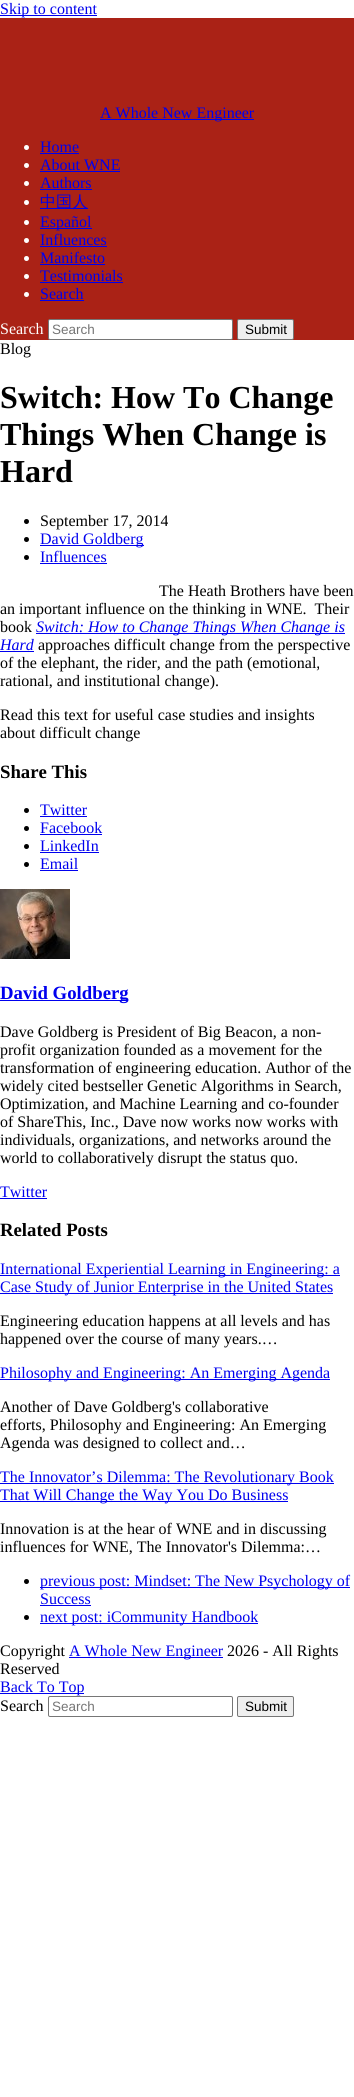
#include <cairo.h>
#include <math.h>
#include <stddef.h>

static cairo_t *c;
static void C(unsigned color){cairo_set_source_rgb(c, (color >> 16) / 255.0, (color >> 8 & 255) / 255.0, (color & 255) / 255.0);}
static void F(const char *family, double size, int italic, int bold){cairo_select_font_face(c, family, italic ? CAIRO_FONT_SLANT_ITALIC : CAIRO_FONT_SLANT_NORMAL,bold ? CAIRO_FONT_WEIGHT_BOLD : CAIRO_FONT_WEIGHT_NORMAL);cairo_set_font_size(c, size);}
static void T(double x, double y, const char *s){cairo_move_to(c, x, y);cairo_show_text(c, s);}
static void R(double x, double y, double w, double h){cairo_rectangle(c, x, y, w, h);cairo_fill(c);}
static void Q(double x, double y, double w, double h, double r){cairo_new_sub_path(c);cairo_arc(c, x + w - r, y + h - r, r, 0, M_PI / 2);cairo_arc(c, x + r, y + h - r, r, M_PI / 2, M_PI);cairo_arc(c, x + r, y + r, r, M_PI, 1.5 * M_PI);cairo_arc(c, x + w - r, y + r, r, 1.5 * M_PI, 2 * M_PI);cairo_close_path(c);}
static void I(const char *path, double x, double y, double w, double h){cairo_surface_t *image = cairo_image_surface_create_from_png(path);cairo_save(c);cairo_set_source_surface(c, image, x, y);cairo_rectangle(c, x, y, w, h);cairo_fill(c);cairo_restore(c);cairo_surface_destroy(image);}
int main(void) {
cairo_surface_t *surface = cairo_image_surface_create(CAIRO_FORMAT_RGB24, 354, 2097);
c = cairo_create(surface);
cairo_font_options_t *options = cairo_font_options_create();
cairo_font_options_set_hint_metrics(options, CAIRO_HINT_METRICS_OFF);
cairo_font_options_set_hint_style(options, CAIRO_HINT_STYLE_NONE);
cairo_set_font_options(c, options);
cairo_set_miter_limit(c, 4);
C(0xffffff);
cairo_paint(c);
C(0x0000ee);
R(0,15,97,1);
F("Liberation Serif",16,0,0);
T(0,14,"Skip to content");
C(0xaa2216);
R(0,18,354,322);
C(0x0000ee);
R(100,119,154,1);
T(100,118,"A Whole New Engineer");
C(0xffffff);
cairo_new_path(c);
cairo_arc(c,26.5,147.5,2.5,0,2 * M_PI);
cairo_fill(c);
C(0x0000ee);
T(40,152,"Home");
R(40,153,39,1);
C(0xffffff);
cairo_new_path(c);
cairo_arc(c,26.5,165.5,2.5,0,2 * M_PI);
cairo_fill(c);
C(0x0000ee);
T(40,170,"About WNE");
R(40,171,80,1);
C(0xffffff);
cairo_new_path(c);
cairo_arc(c,26.5,183.5,2.5,0,2 * M_PI);
cairo_fill(c);
C(0x0000ee);
T(40,188,"Authors");
R(40,189,52,1);
C(0xffffff);
cairo_new_path(c);
cairo_arc(c,26.5,202.5,2.5,0,2 * M_PI);
cairo_fill(c);
C(0x0000ee);
R(40,208,48,1);
F("WenQuanYi Zen Hei Medium",16,0,0);
T(40,207,"中国人");
C(0xffffff);
cairo_new_path(c);
cairo_arc(c,26.5,222.5,2.5,0,2 * M_PI);
cairo_fill(c);
C(0x0000ee);
R(40,228,52,1);
F("Liberation Serif",16,0,0);
T(40,227,"Español");
C(0xffffff);
cairo_new_path(c);
cairo_arc(c,26.5,240.5,2.5,0,2 * M_PI);
cairo_fill(c);
C(0x0000ee);
T(40,245,"Influences");
R(40,246,67,1);
C(0xffffff);
cairo_new_path(c);
cairo_arc(c,26.5,258.5,2.5,0,2 * M_PI);
cairo_fill(c);
C(0x0000ee);
T(40,263,"Manifesto");
R(40,264,65,1);
C(0xffffff);
cairo_new_path(c);
cairo_arc(c,26.5,276.5,2.5,0,2 * M_PI);
cairo_fill(c);
C(0x0000ee);
T(40,281,"Testimonials");
R(40,282,83,1);
C(0xffffff);
cairo_new_path(c);
cairo_arc(c,26.5,294.5,2.5,0,2 * M_PI);
cairo_fill(c);
C(0x0000ee);
T(40,299,"Search");
R(40,300,44,1);
C(0xffffff);
T(0,334,"Search");
Q(48.5,319.5,184,20,1.5);
cairo_fill_preserve(c);
C(0x767676);
cairo_set_line_width(c,1);
cairo_stroke(c);
F("Liberation Sans",13.5,0,0);
C(0x757575);
T(52,334,"Search");
C(0xefefef);
Q(237.5,319.5,56,20,1.5);
cairo_fill_preserve(c);
C(0x767676);
cairo_stroke(c);
C(0x000000);
T(245,334,"Submit");
F("Liberation Serif",16,0,0);
T(0,354,"Blog");
F("Liberation Serif",32,0,1);
T(0,408,"Switch: How To Change");
T(0,445,"Things When Change is");
T(0,482,"Hard");
cairo_new_path(c);
cairo_arc(c,26.5,521.5,2.5,0,2 * M_PI);
cairo_fill(c);
F("Liberation Serif",16,0,0);
T(40,526,"September 17, 2014");
cairo_new_path(c);
cairo_arc(c,26.5,539.5,2.5,0,2 * M_PI);
cairo_fill(c);
C(0x0000ee);
R(40,545,104,1);
T(40,544,"David Goldberg");
C(0x000000);
cairo_new_path(c);
cairo_arc(c,26.5,557.5,2.5,0,2 * M_PI);
cairo_fill(c);
C(0x0000ee);
T(40,562,"Influences");
R(40,563,67,1);
C(0x000000);
T(159,596,"The Heath Brothers have been");
T(0,614,"an important influence on the thinking in WNE.  Their");
T(0,632,"book");
C(0x0000ee);
R(36,633,309,1);
F("Liberation Serif",16,1,0);
T(36,632,"Switch: How to Change Things When Change is");
T(0,650,"Hard");
R(0,651,34,1);
F("Liberation Serif",16,0,0);
C(0x000000);
T(38,650,"approaches difficult change from the perspective");
T(0,668,"of the elephant, the rider, and the path (emotional,");
T(0,686,"rational, and institutional change).");
T(0,720,"Read this text for useful case studies and insights");
T(0,738,"about difficult change");
F("Liberation Serif",18.75,0,1);
T(0,778,"Share This");
cairo_new_path(c);
cairo_arc(c,26.5,810.5,2.5,0,2 * M_PI);
cairo_fill(c);
F("Liberation Serif",16,0,0);
C(0x0000ee);
T(40,815,"Twitter");
R(40,816,47,1);
C(0x000000);
cairo_new_path(c);
cairo_arc(c,26.5,828.5,2.5,0,2 * M_PI);
cairo_fill(c);
C(0x0000ee);
T(40,833,"Facebook");
R(40,834,62,1);
C(0x000000);
cairo_new_path(c);
cairo_arc(c,26.5,846.5,2.5,0,2 * M_PI);
cairo_fill(c);
C(0x0000ee);
T(40,851,"LinkedIn");
R(40,852,59,1);
C(0x000000);
cairo_new_path(c);
cairo_arc(c,26.5,864.5,2.5,0,2 * M_PI);
cairo_fill(c);
C(0x0000ee);
T(40,869,"Email");
R(40,870,38,1);
I("1.png",0,889,70,70);
R(0,1000,128,1);
F("Liberation Serif",18.75,0,1);
T(0,999,"David Goldberg");
F("Liberation Serif",16,0,0);
C(0x000000);
T(0,1037,"Dave Goldberg is President of Big Beacon, a non-");
T(0,1055,"profit organization founded as a movement for the");
T(0,1073,"transformation of engineering education. Author of the");
T(0,1091,"widely cited bestseller Genetic Algorithms in Search,");
T(0,1109,"Optimization, and Machine Learning and co-founder");
T(0,1127,"of ShareThis, Inc., Dave now works now works with");
T(0,1145,"individuals, organizations, and networks around the");
T(0,1163,"world to collaboratively disrupt the status quo.");
C(0x0000ee);
T(0,1197,"Twitter");
R(0,1198,47,1);
F("Liberation Serif",18.75,0,1);
C(0x000000);
T(0,1236,"Related Posts");
C(0x0000ee);
R(0,1275,340,1);
F("Liberation Serif",16,0,0);
T(0,1274,"International Experiential Learning in Engineering: a");
R(0,1293,333,1);
T(0,1292,"Case Study of Junior Enterprise in the United States");
C(0x000000);
T(0,1326,"Engineering education happens at all levels and has");
T(0,1344,"happened over the course of many years.…");
C(0x0000ee);
R(0,1379,330,1);
T(0,1378,"Philosophy and Engineering: An Emerging Agenda");
C(0x000000);
T(0,1412,"Another of Dave Goldberg's collaborative");
T(0,1430,"efforts, Philosophy and Engineering: An Emerging");
T(0,1448,"Agenda was designed to collect and…");
C(0x0000ee);
R(0,1483,334,1);
T(0,1482,"The Innovator’s Dilemma: The Revolutionary Book");
R(0,1501,288,1);
T(0,1500,"That Will Change the Way You Do Business");
C(0x000000);
T(0,1534,"Innovation is at the hear of WNE and in discussing");
T(0,1552,"influences for WNE, The Innovator's Dilemma:…");
cairo_new_path(c);
cairo_arc(c,26.5,1581.5,2.5,0,2 * M_PI);
cairo_fill(c);
C(0x0000ee);
R(40,1587,310,1);
T(40,1586,"previous post: Mindset: The New Psychology of");
T(40,1604,"Success");
R(40,1605,51,1);
C(0x000000);
cairo_new_path(c);
cairo_arc(c,26.5,1617.5,2.5,0,2 * M_PI);
cairo_fill(c);
C(0x0000ee);
R(40,1623,218,1);
T(40,1622,"next post: iCommunity Handbook");
C(0x000000);
T(0,1656,"Copyright");
C(0x0000ee);
R(69,1657,154,1);
T(69,1656,"A Whole New Engineer");
C(0x000000);
T(227,1656,"2026 - All Rights");
T(0,1674,"Reserved");
C(0x0000ee);
R(0,1693,84,1);
T(0,1692,"Back To Top");
C(0x000000);
T(0,1711,"Search");
Q(48.5,1696.5,184,20,1.5);
C(0x767676);
cairo_stroke(c);
F("Liberation Sans",13.5,0,0);
C(0x757575);
T(52,1711,"Search");
C(0xefefef);
Q(237.5,1696.5,56,20,1.5);
cairo_fill_preserve(c);
C(0x767676);
cairo_stroke(c);
C(0x000000);
T(245,1711,"Submit");
cairo_surface_write_to_png(surface, "o.png");
cairo_font_options_destroy(options);
cairo_destroy(c);
cairo_surface_destroy(surface);
return 0;
}
